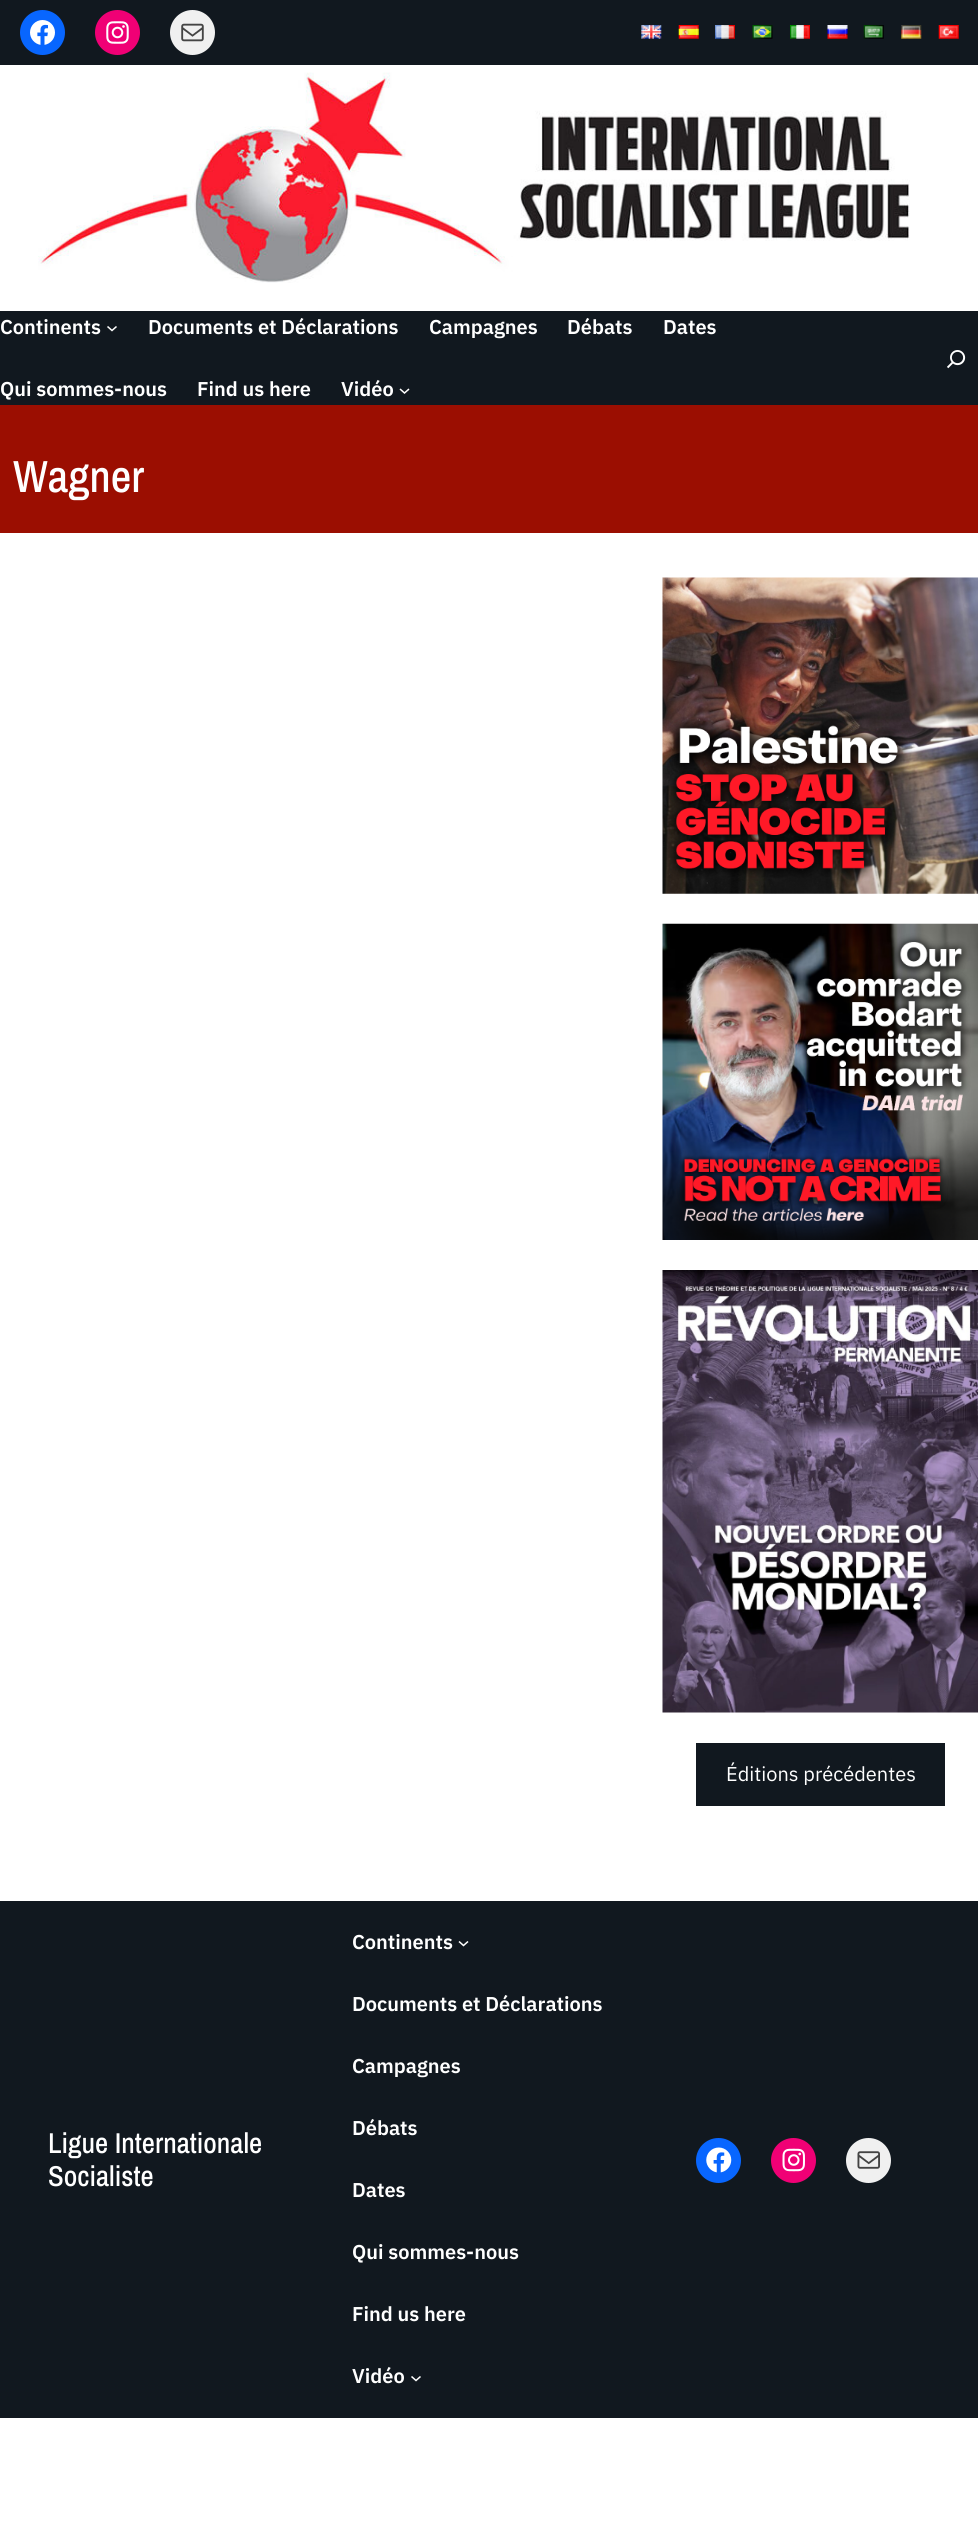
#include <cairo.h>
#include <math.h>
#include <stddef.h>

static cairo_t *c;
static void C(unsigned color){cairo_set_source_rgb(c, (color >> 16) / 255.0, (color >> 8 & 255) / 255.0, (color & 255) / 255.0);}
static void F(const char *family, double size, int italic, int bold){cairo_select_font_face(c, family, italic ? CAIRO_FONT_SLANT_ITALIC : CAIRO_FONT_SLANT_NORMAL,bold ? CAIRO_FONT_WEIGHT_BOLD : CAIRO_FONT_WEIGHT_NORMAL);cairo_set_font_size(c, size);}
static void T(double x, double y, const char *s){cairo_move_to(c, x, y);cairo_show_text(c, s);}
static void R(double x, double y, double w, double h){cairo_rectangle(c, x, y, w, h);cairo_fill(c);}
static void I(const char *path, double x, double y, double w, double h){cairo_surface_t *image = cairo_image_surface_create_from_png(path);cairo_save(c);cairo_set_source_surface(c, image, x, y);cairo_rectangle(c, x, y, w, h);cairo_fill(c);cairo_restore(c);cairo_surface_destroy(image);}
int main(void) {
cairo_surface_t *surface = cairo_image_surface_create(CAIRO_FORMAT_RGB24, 978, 2541);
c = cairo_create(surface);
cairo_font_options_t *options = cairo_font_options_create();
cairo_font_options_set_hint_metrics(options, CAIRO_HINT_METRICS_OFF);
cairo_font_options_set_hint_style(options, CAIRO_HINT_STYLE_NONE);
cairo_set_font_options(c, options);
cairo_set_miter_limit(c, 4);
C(0xffffff);
cairo_paint(c);
C(0x11181f);
R(0,0,978,65);
C(0x0866ff);
cairo_arc(c,42.5,32.5,22.5,0,2 * M_PI);
cairo_fill(c);
I("1.png",30,20,25,25);
C(0xf00075);
cairo_arc(c,117.5,32.5,22.5,0,2 * M_PI);
cairo_fill(c);
I("2.png",106,21,23,23);
C(0xf0f0f0);
cairo_arc(c,192.5,32.5,22.5,0,2 * M_PI);
cairo_fill(c);
I("3.png",181,23,23,19);
I("4.png",641,25,21,14);
I("5.png",678,25,21,14);
I("6.png",715,25,20,14);
I("7.png",752,25,21,14);
I("8.png",790,25,20,14);
I("9.png",827,25,21,14);
I("10.png",863,25,21,14);
I("11.png",901,25,21,14);
I("12.png",938,25,21,14);
I("13.png",38,72,872,211);
C(0x11181f);
R(0,311,978,94);
F("IBM Plex Sans SemiBold",20,0,0);
C(0xffffff);
T(0,334,"Continents");
cairo_new_path(c);
cairo_move_to(c,107.5,326.5);
cairo_line_to(c,112,330.5);
cairo_line_to(c,116.5,326.5);
cairo_set_line_width(c,1.5);
cairo_stroke(c);
T(148,334,"Documents et Déclarations");
T(429,334,"Campagnes");
T(567,334,"Débats");
T(663,334,"Dates");
T(0,396,"Qui sommes-nous");
T(197,396,"Find us here");
T(341,396,"Vidéo");
cairo_new_path(c);
cairo_move_to(c,400,389);
cairo_line_to(c,404.5,393);
cairo_line_to(c,409,389);
cairo_stroke(c);
I("14.png",947,350,19,19);
C(0x9b0e01);
R(0,405,978,128);
F("Archivo Narrow Medium",45,0,0);
C(0xffffff);
T(13,492,"Wagner");
I("15.png",662,577,316,317);
I("16.png",662,923,316,317);
I("17.png",662,1270,316,443);
C(0x11181f);
R(696,1743,249,63);
F("IBM Plex Sans",20,0,0);
C(0xffffff);
T(726,1781,"Éditions précédentes");
C(0x11181f);
R(0,1901,978,517);
F("Archivo Narrow Medium",28.75,0,0);
C(0xffffff);
T(48,2153,"Ligue Internationale");
T(48,2186,"Socialiste");
F("IBM Plex Sans SemiBold",20,0,0);
T(352,1949,"Continents");
cairo_new_path(c);
cairo_move_to(c,459,1941.5);
cairo_line_to(c,463.5,1945.5);
cairo_line_to(c,468,1941.5);
cairo_stroke(c);
T(352,2011,"Documents et Déclarations");
T(352,2073,"Campagnes");
T(352,2135,"Débats");
T(352,2197,"Dates");
T(352,2259,"Qui sommes-nous");
T(352,2321,"Find us here");
T(352,2383,"Vidéo");
cairo_new_path(c);
cairo_move_to(c,411.5,2376.5);
cairo_line_to(c,416,2380.5);
cairo_line_to(c,420.5,2376.5);
cairo_stroke(c);
C(0x0866ff);
cairo_arc(c,718.5,2160.5,22.5,0,2 * M_PI);
cairo_fill(c);
I("18.png",706,2147,26,26);
C(0xf00075);
cairo_arc(c,793.5,2160.5,22.5,0,2 * M_PI);
cairo_fill(c);
I("19.png",782,2148,23,24);
C(0xf0f0f0);
cairo_arc(c,868.5,2160.5,22.5,0,2 * M_PI);
cairo_fill(c);
I("20.png",857,2151,23,18);
cairo_surface_write_to_png(surface, "o.png");
cairo_font_options_destroy(options);
cairo_destroy(c);
cairo_surface_destroy(surface);
return 0;
}
